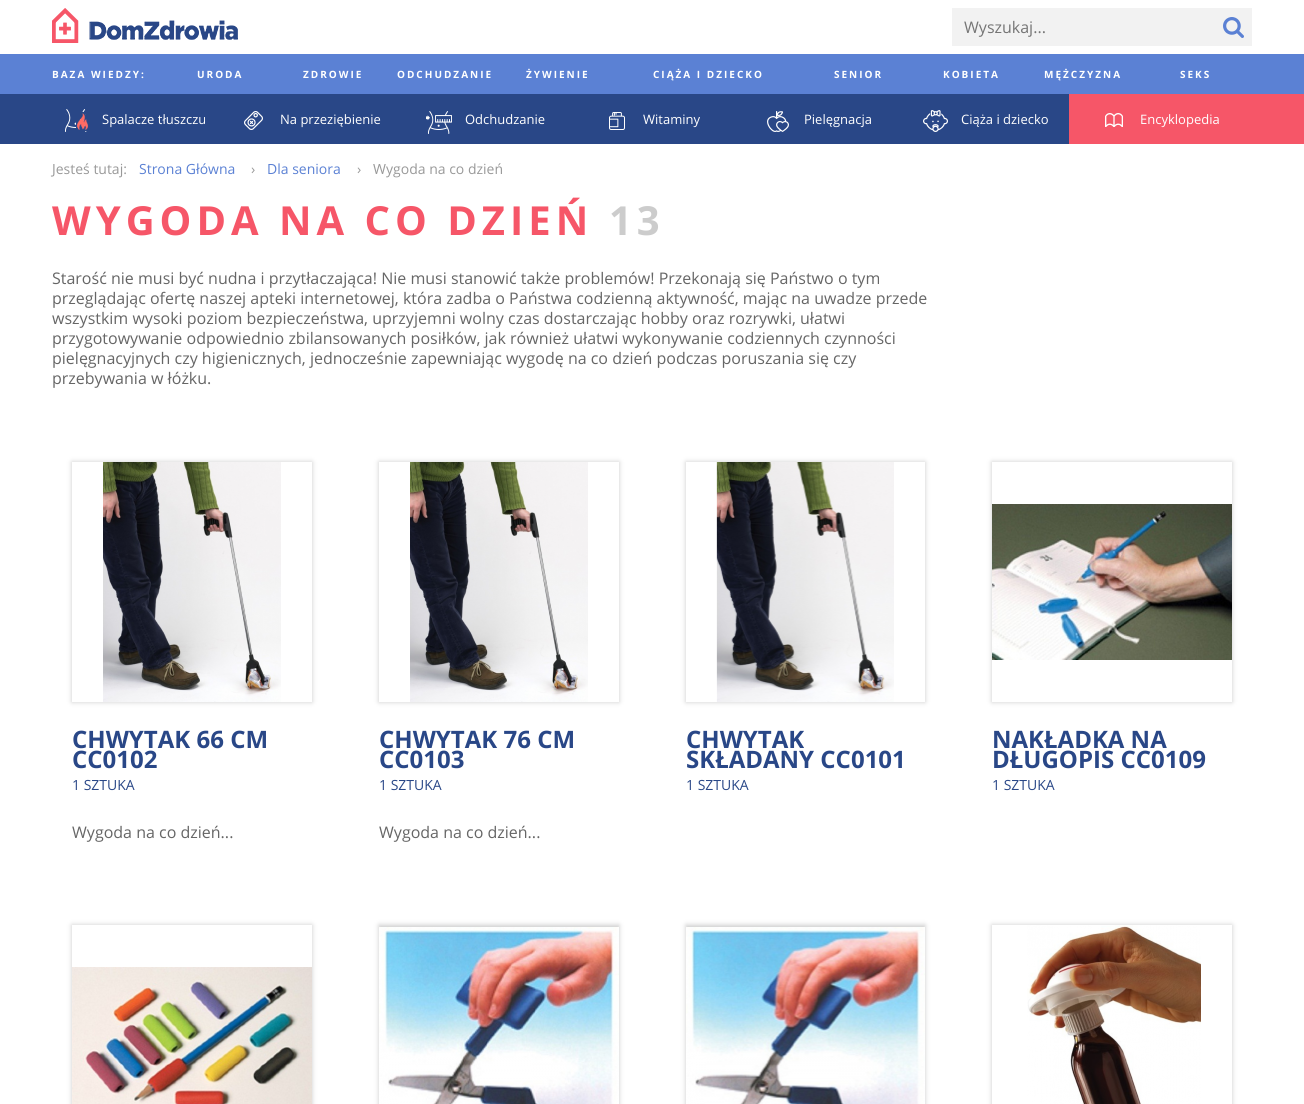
#include <cairo.h>
#include <math.h>
#include <stddef.h>

static cairo_t *c;
static void C(unsigned color){cairo_set_source_rgb(c, (color >> 16) / 255.0, (color >> 8 & 255) / 255.0, (color & 255) / 255.0);}
static void F(const char *family, double size, int italic, int bold){cairo_select_font_face(c, family, italic ? CAIRO_FONT_SLANT_ITALIC : CAIRO_FONT_SLANT_NORMAL,bold ? CAIRO_FONT_WEIGHT_BOLD : CAIRO_FONT_WEIGHT_NORMAL);cairo_set_font_size(c, size);}
static void T(double x, double y, const char *s){cairo_move_to(c, x, y);cairo_show_text(c, s);}
static void L(double x, double y, const char *s, double letter, double word){cairo_move_to(c, x, y);while (*s) {char ch[5] = {0};int n = 0;do ch[n++] = *s++; while ((*s & 0xC0) == 0x80);cairo_show_text(c, ch);cairo_rel_move_to(c, letter + word * (*ch == ' '), 0);}}
static void R(double x, double y, double w, double h){cairo_rectangle(c, x, y, w, h);cairo_fill(c);}
static void Q(double x, double y, double w, double h, double r){cairo_new_sub_path(c);cairo_arc(c, x + w - r, y + h - r, r, 0, M_PI / 2);cairo_arc(c, x + r, y + h - r, r, M_PI / 2, M_PI);cairo_arc(c, x + r, y + r, r, M_PI, 1.5 * M_PI);cairo_arc(c, x + w - r, y + r, r, 1.5 * M_PI, 2 * M_PI);cairo_close_path(c);}
static void S(double x, double y, double w, double h, double r, double blur, double alpha){cairo_push_group_with_content(c, CAIRO_CONTENT_ALPHA);cairo_set_operator(c, CAIRO_OPERATOR_SOURCE);for (int i = 15; i >= -15 && fmin(w, h) + blur * i / 3 > 0; i -= 2) {double e = blur * i / 6;cairo_set_source_rgba(c, 0, 0, 0, alpha * erfc((i - 1) / 8.5) / 2);Q(x - e, y - e, w + 2 * e, h + 2 * e, fmax(0, fmin(r + e + blur * .6, fmin(w, h) / 2 + e)));cairo_fill(c);}cairo_pattern_t *soft = cairo_pop_group(c);cairo_mask(c, soft);cairo_pattern_destroy(soft);}
static void I(const char *path, double x, double y, double w, double h){cairo_surface_t *image = cairo_image_surface_create_from_png(path);cairo_save(c);cairo_set_source_surface(c, image, x, y);cairo_rectangle(c, x, y, w, h);cairo_fill(c);cairo_restore(c);cairo_surface_destroy(image);}
int main(void) {
cairo_surface_t *surface = cairo_image_surface_create(CAIRO_FORMAT_RGB24, 1304, 1104);
c = cairo_create(surface);
cairo_font_options_t *options = cairo_font_options_create();
cairo_font_options_set_hint_metrics(options, CAIRO_HINT_METRICS_OFF);
cairo_font_options_set_hint_style(options, CAIRO_HINT_STYLE_NONE);
cairo_set_font_options(c, options);
cairo_set_miter_limit(c, 4);
C(0xffffff);
cairo_paint(c);
I("1.png",52,8,186,35);
C(0xf2f2f2);
R(952,8,300,38);
F("Open Sans",16,0,0);
C(0x757575);
T(964,33,"Wyszukaj...");
I("2.png",1223,17,21,21);
C(0x5b81d4);
R(0,54,1304,40);
F("Open Sans",10,0,1);
C(0xffffff);
L(52,78,"BAZA WIEDZY:",2,0);
L(197,78,"URODA",2,0);
L(303,78,"ZDROWIE",2,0);
L(397,78,"ODCHUDZANIE",2,0);
L(526,78,"ŻYWIENIE",2,0);
L(653,78,"CIĄŻA I DZIECKO",2,0);
L(834,78,"SENIOR",2,0);
L(943,78,"KOBIETA",2,0);
L(1044,78,"MĘŻCZYZNA",2,0);
L(1180,78,"SEKS",2,0);
C(0x294787);
R(0,94,1069,50);
C(0xf65668);
R(1069,94,235,50);
I("3.png",65,109,23,23);
F("Open Sans",13,0,0);
C(0xffffff);
T(102,124,"Spalacze tłuszczu");
I("4.png",244,111,19,19);
T(280,124,"Na przeziębienie");
I("5.png",426,111,26,23);
T(465,124,"Odchudzanie");
I("6.png",609,112,16,18);
T(643,124,"Witaminy");
I("7.png",767,111,22,21);
T(804,124,"Pielęgnacja");
I("8.png",923,110,25,22);
T(961,124,"Ciąża i dziecko");
I("9.png",1105,113,18,14);
T(1140,124,"Encyklopedia");
F("Open Sans",14,0,0);
C(0x999999);
T(52,174,"Jesteś tutaj:");
C(0x5b81d4);
T(139,174,"Strona Główna");
C(0x999999);
T(251,174,"›");
C(0x5b81d4);
T(267,174,"Dla seniora");
C(0x999999);
T(357,174,"›");
T(373,174,"Wygoda na co dzień");
F("Open Sans",40,0,1);
C(0xf65668);
L(52,235,"WYGODA NA CO DZIEŃ",5,0);
C(0xcccccc);
L(609,235,"13",5,0);
F("Open Sans",16,0,0);
C(0x666666);
T(52,284,"Starość nie musi być nudna i przytłaczająca! Nie musi stanowić także problemów! Przekonają się Państwo o tym");
T(52,304,"przeglądając ofertę naszej apteki internetowej, która zadba o Państwa codzienną aktywność, mając na uwadze przede");
T(52,324,"wszystkim wysoki poziom bezpieczeństwa, uprzyjemni wolny czas dostarczając hobby oraz rozrywki, ułatwi");
T(52,344,"przygotowywanie odpowiednio zbilansowanych posiłków, jak również ułatwi wykonywanie codziennych czynności");
T(52,364,"pielęgnacyjnych czy higienicznych, jednocześnie zapewniając wygodę na co dzień podczas poruszania się czy");
T(52,384,"przebywania w łóżku.");
cairo_save(c);
cairo_set_fill_rule(c,CAIRO_FILL_RULE_EVEN_ODD);
cairo_new_path(c);
cairo_move_to(c,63,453);
cairo_line_to(c,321,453);
cairo_line_to(c,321,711);
cairo_line_to(c,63,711);
cairo_close_path(c);
cairo_move_to(c,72,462);
cairo_line_to(c,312,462);
cairo_line_to(c,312,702);
cairo_line_to(c,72,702);
cairo_close_path(c);
cairo_clip(c);
C(0xcccccc);
S(72,462,240,240,0,2.5,1);
cairo_restore(c);
I("10.png",103,462,178,240);
F("Open Sans",24,0,1);
C(0x294787);
T(72,748,"CHWYTAK 66 CM");
T(72,768,"CC0102");
F("Open Sans",14,0,0);
T(72,790,"1 SZTUKA");
F("Open Sans",16,0,0);
C(0x666666);
T(72,838,"Wygoda na co dzień...");
cairo_save(c);
cairo_set_fill_rule(c,CAIRO_FILL_RULE_EVEN_ODD);
cairo_new_path(c);
cairo_move_to(c,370,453);
cairo_line_to(c,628,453);
cairo_line_to(c,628,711);
cairo_line_to(c,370,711);
cairo_close_path(c);
cairo_move_to(c,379,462);
cairo_line_to(c,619,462);
cairo_line_to(c,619,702);
cairo_line_to(c,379,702);
cairo_close_path(c);
cairo_clip(c);
C(0xcccccc);
S(379,462,240,240,0,2.5,1);
cairo_restore(c);
I("10.png",410,462,178,240);
F("Open Sans",24,0,1);
C(0x294787);
T(379,748,"CHWYTAK 76 CM");
T(379,768,"CC0103");
F("Open Sans",14,0,0);
T(379,790,"1 SZTUKA");
F("Open Sans",16,0,0);
C(0x666666);
T(379,838,"Wygoda na co dzień...");
cairo_save(c);
cairo_set_fill_rule(c,CAIRO_FILL_RULE_EVEN_ODD);
cairo_new_path(c);
cairo_move_to(c,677,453);
cairo_line_to(c,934,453);
cairo_line_to(c,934,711);
cairo_line_to(c,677,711);
cairo_close_path(c);
cairo_move_to(c,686,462);
cairo_line_to(c,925,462);
cairo_line_to(c,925,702);
cairo_line_to(c,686,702);
cairo_close_path(c);
cairo_clip(c);
C(0xcccccc);
S(686,462,239,240,0,2.5,1);
cairo_restore(c);
I("11.png",716,462,178,240);
F("Open Sans",24,0,1);
C(0x294787);
T(686,748,"CHWYTAK");
T(686,768,"SKŁADANY CC0101");
F("Open Sans",14,0,0);
T(686,790,"1 SZTUKA");
cairo_save(c);
cairo_set_fill_rule(c,CAIRO_FILL_RULE_EVEN_ODD);
cairo_new_path(c);
cairo_move_to(c,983,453);
cairo_line_to(c,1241,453);
cairo_line_to(c,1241,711);
cairo_line_to(c,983,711);
cairo_close_path(c);
cairo_move_to(c,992,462);
cairo_line_to(c,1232,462);
cairo_line_to(c,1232,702);
cairo_line_to(c,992,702);
cairo_close_path(c);
cairo_clip(c);
C(0xcccccc);
S(992,462,240,240,0,2.5,1);
cairo_restore(c);
I("12.png",992,504,240,156);
F("Open Sans",24,0,1);
T(992,748,"NAKŁADKA NA");
T(992,768,"DŁUGOPIS CC0109");
F("Open Sans",14,0,0);
T(992,790,"1 SZTUKA");
cairo_save(c);
cairo_set_fill_rule(c,CAIRO_FILL_RULE_EVEN_ODD);
cairo_new_path(c);
cairo_move_to(c,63,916);
cairo_line_to(c,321,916);
cairo_line_to(c,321,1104);
cairo_line_to(c,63,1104);
cairo_close_path(c);
cairo_move_to(c,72,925);
cairo_line_to(c,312,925);
cairo_line_to(c,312,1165);
cairo_line_to(c,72,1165);
cairo_close_path(c);
cairo_clip(c);
C(0xcccccc);
S(72,925,240,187,0,2.5,1);
cairo_restore(c);
I("13.png",72,967,240,137);
C(0xcccccc);
S(379,925,240,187,0,2.5,1);
I("14.png",379,927,240,177);
S(686,925,239,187,0,2.5,1);
I("15.png",686,927,239,177);
cairo_save(c);
cairo_set_fill_rule(c,CAIRO_FILL_RULE_EVEN_ODD);
cairo_new_path(c);
cairo_move_to(c,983,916);
cairo_line_to(c,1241,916);
cairo_line_to(c,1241,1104);
cairo_line_to(c,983,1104);
cairo_close_path(c);
cairo_move_to(c,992,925);
cairo_line_to(c,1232,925);
cairo_line_to(c,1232,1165);
cairo_line_to(c,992,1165);
cairo_close_path(c);
cairo_clip(c);
S(992,925,240,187,0,2.5,1);
cairo_restore(c);
I("16.png",1027,925,174,179);
cairo_surface_write_to_png(surface, "o.png");
cairo_font_options_destroy(options);
cairo_destroy(c);
cairo_surface_destroy(surface);
return 0;
}
